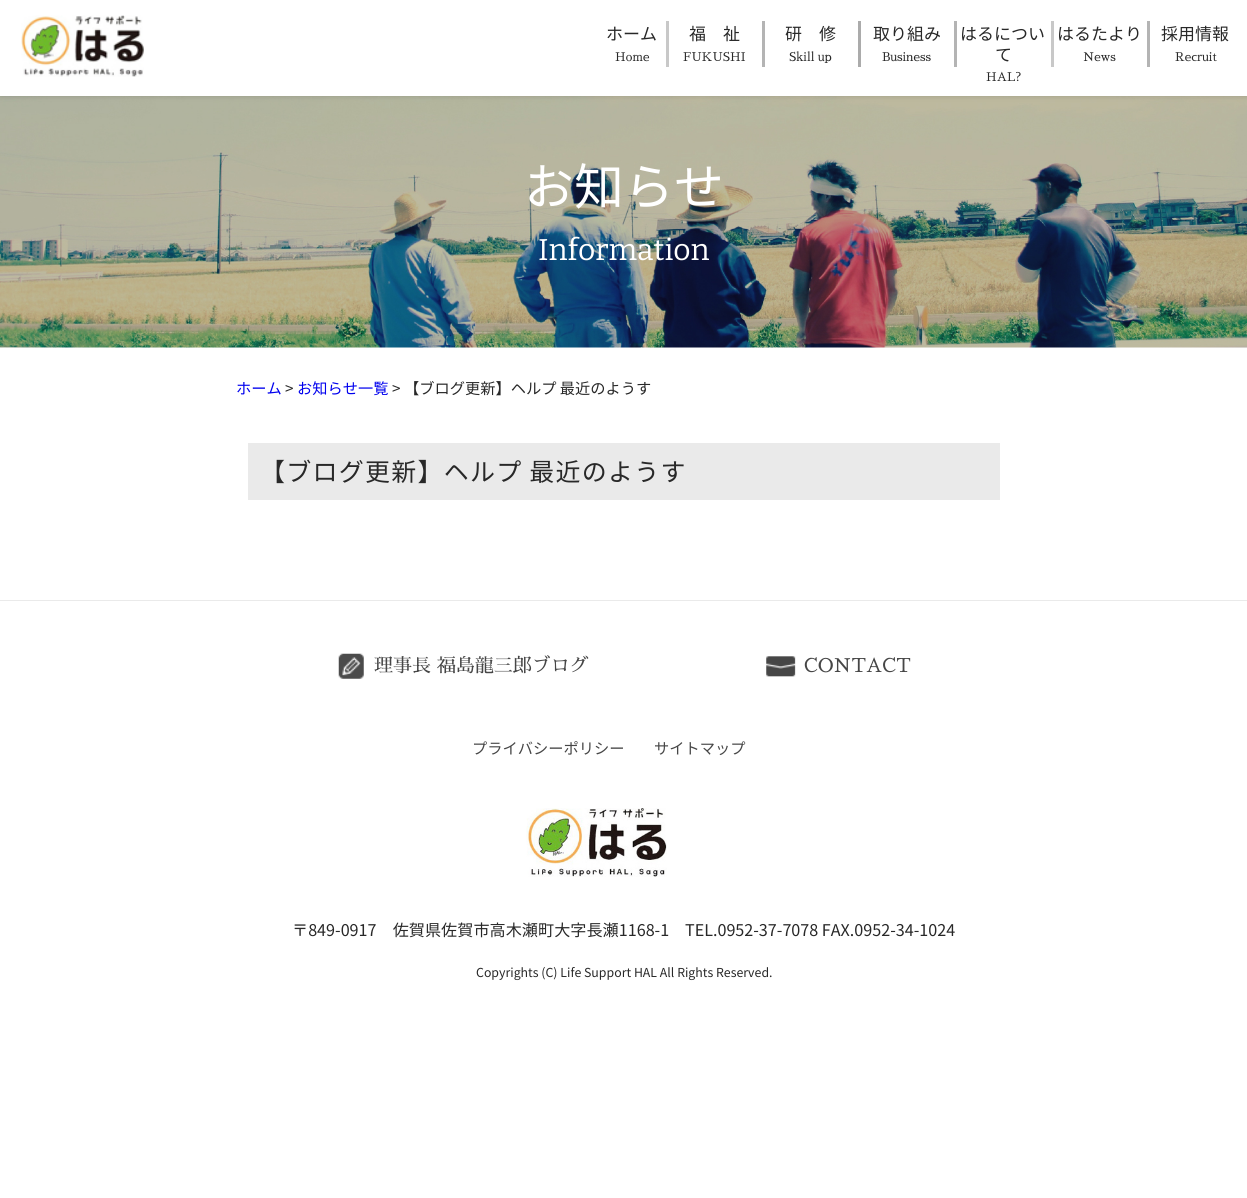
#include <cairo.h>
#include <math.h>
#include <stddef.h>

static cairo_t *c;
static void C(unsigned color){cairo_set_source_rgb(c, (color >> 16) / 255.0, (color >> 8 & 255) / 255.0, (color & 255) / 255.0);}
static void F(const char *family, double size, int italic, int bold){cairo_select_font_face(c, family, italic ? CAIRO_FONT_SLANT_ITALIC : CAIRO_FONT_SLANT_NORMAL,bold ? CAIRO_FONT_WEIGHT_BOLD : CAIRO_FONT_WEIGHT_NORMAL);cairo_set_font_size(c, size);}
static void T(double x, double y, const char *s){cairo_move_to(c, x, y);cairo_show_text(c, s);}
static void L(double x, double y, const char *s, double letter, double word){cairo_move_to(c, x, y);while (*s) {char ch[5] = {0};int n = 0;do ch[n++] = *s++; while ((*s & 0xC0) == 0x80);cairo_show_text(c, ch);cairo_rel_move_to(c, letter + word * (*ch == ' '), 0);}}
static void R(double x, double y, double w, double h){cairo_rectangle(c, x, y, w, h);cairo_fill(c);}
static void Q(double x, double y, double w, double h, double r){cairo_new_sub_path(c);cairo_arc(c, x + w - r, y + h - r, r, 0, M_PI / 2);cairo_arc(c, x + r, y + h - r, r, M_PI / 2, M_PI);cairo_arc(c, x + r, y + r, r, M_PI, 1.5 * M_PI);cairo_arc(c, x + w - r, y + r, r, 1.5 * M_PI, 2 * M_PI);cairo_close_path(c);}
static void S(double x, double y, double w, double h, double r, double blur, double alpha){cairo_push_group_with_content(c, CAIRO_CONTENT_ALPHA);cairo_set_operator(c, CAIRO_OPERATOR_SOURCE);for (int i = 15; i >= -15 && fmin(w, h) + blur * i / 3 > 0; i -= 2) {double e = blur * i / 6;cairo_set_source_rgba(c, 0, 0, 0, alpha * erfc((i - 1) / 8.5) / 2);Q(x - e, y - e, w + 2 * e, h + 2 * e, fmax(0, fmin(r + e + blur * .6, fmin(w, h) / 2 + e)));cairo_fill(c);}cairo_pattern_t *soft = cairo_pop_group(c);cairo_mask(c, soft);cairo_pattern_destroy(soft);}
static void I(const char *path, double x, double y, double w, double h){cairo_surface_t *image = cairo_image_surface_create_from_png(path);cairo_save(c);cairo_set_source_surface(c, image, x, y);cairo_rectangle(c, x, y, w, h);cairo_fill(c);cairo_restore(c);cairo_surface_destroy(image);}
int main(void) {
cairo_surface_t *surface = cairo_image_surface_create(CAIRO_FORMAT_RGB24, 1247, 1198);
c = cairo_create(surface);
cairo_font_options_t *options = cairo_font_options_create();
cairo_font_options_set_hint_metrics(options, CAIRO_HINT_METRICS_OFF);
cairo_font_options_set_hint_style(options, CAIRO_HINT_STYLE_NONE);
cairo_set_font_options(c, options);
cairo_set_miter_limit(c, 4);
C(0xffffff);
cairo_paint(c);
I("2.png",0,96,1247,252);
C(0x000000);
S(0,0,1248,96,0,3,.15);
C(0xffffff);
R(0,0,1247,96);
I("1.png",21,15,123,62);
F("Noto Sans JP",17,0,0);
C(0x282828);
T(606,40,"ホーム");
F("Sawarabi Mincho",12,0,0);
T(615,61,"Home");
C(0xc8c8c8);
R(666,21,3,46);
F("Noto Sans JP",17,0,0);
C(0x282828);
T(689,40,"福　祉");
F("Sawarabi Mincho",12,0,0);
T(683,61,"FUKUSHI");
C(0xb4b4b4);
R(762,21,3,46);
F("Noto Sans JP",17,0,0);
C(0x282828);
T(785,40,"研　修");
F("Sawarabi Mincho",12,0,0);
T(789,61,"Skill up");
C(0xababab);
R(858,21,3,46);
F("Noto Sans JP",17,0,0);
C(0x282828);
T(873,40,"取り組み");
F("Sawarabi Mincho",12,0,0);
T(882,61,"Business");
C(0xb4b4b4);
R(954,21,3,46);
F("Noto Sans JP",17,0,0);
C(0x282828);
T(960,40,"はるについ");
T(995,61,"て");
F("Sawarabi Mincho",12,0,0);
T(986,81,"HAL?");
C(0xc8c8c8);
R(1051,21,3,46);
F("Noto Sans JP",17,0,0);
C(0x282828);
T(1057,40,"はるたより");
F("Sawarabi Mincho",12,0,0);
T(1083,61,"News");
C(0xb4b4b4);
R(1147,21,3,46);
F("Noto Sans JP",17,0,0);
C(0x282828);
T(1161,40,"採用情報");
F("Sawarabi Mincho",12,0,0);
T(1175,61,"Recruit");
F("Noto Sans JP",50,0,0);
C(0xffffff);
T(524,205,"お知らせ");
F("Bitter",30,0,0);
T(538,260,"Information");
F("Noto Sans JP",15.25,0,0);
C(0x0000ee);
T(236,394,"ホーム");
C(0x282828);
T(285,394,">");
C(0x0000ee);
T(297,394,"お知らせ一覧");
C(0x282828);
T(392,394,"> 【ブログ更新】ヘルプ 最近のようす");
C(0xeaeaea);
R(248,443,752,57);
F("Noto Sans JP",25,0,0);
C(0x282828);
L(260,481,"【ブログ更新】ヘルプ 最近のようす",1.25,0);
C(0xeaeaea);
R(0,600,1247,1);
I("3.png",338,653,26,26);
F("Sawarabi Mincho",19,0,0);
C(0x464646);
T(374,672,"理事長 福島龍三郎ブログ");
I("4.png",766,656,30,21);
T(804,672,"CONTACT");
F("Noto Sans JP",15.25,0,0);
T(472,754,"プライバシーポリシー");
T(654,754,"サイトマップ");
I("5.png",526,808,141,69);
F("Noto Sans JP",16.15,0,0);
C(0x282828);
T(292,936,"〒849-0917　佐賀県佐賀市高木瀬町大字長瀬1168-1");
T(685,936,"TEL.0952-37-7078 FAX.0952-34-1024");
F("Noto Sans JP",12.35,0,0);
T(476,977,"Copyrights (C) Life Support HAL All Rights Reserved.");
cairo_surface_write_to_png(surface, "o.png");
cairo_font_options_destroy(options);
cairo_destroy(c);
cairo_surface_destroy(surface);
return 0;
}
